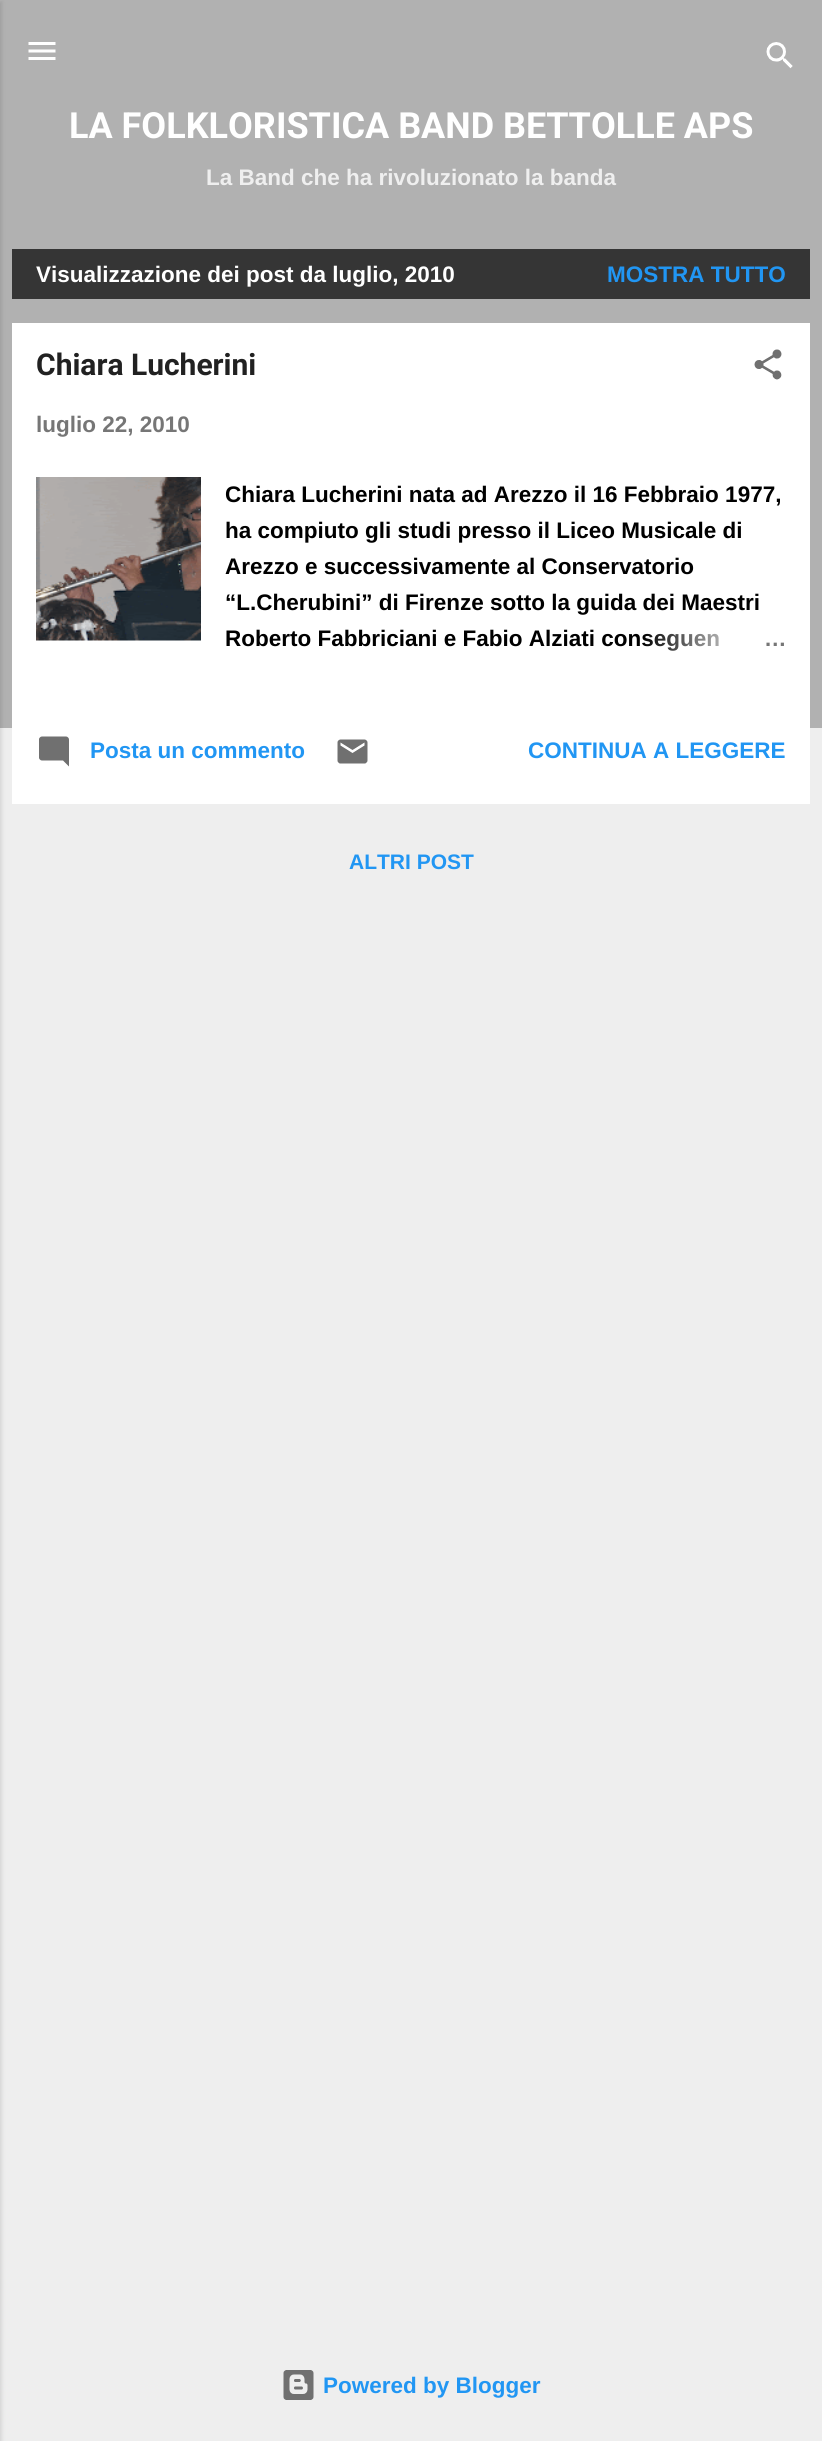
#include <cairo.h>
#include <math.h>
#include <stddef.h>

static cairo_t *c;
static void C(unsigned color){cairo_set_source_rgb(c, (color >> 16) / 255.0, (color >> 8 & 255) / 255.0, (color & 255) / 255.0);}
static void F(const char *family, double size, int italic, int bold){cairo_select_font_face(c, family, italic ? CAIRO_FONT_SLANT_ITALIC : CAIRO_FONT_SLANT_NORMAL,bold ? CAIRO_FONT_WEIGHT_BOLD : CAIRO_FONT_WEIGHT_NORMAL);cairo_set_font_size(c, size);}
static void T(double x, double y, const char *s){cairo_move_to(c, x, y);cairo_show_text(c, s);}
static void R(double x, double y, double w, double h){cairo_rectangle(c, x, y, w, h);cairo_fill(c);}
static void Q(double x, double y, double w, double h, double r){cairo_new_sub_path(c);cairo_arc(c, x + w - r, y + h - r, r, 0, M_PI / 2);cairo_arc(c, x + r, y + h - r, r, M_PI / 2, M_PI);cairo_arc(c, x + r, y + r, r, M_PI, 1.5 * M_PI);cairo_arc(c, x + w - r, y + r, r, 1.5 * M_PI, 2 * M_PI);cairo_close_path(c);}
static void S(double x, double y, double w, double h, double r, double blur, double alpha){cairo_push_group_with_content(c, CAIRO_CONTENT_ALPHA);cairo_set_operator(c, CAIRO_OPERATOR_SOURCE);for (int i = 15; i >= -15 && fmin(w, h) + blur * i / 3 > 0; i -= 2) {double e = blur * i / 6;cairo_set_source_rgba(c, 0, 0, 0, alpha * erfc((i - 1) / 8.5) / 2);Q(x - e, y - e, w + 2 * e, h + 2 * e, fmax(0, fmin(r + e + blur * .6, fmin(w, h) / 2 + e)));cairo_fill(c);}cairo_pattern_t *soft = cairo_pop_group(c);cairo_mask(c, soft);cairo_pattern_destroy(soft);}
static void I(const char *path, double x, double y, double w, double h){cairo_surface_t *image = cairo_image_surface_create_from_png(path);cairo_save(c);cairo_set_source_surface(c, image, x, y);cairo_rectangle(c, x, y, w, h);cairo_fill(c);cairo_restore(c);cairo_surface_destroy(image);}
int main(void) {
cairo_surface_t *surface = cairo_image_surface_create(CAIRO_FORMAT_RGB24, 822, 2441);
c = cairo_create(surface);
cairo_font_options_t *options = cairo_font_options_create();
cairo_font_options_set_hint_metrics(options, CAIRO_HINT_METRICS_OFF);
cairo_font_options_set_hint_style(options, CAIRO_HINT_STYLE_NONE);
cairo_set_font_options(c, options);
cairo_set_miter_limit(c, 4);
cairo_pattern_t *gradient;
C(0xeeeeee);
cairo_paint(c);
C(0xb1b1b1);
R(0,0,822,728);
C(0x000000);
S(-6,2,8,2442,0,2,.1);
I("1.png",28,42,28,18);
I("2.png",766,42,27,27);
F("Roboto",36,0,1);
C(0xffffff);
T(69,138,"LA FOLKLORISTICA BAND BETTOLLE APS");
F("Liberation Sans",22.5,0,1);
C(0xefefef);
T(206,185,"La Band che ha rivoluzionato la banda");
C(0x353535);
R(12,249,798,50);
C(0xffffff);
T(36,282,"Visualizzazione dei post da luglio, 2010");
C(0x2196f3);
T(607,282,"MOSTRA TUTTO");
C(0xffffff);
R(12,323,798,481);
F("Roboto",30,0,1);
C(0x212121);
T(36,375,"Chiara Lucherini");
I("3.png",754,349,28,31);
F("Liberation Sans",22.5,0,1);
C(0x767676);
T(36,432,"luglio 22, 2010");
I("4.png",36,477,165,164);
C(0x000000);
T(225,502,"Chiara Lucherini nata ad Arezzo il 16 Febbraio 1977,");
T(225,538,"ha compiuto gli studi presso il Liceo Musicale di");
T(225,574,"Arezzo e successivamente al Conservatorio");
T(225,610,"“L.Cherubini” di Firenze sotto la guida dei Maestri");
T(225,646,"Roberto Fabbriciani e Fabio Alziati conseguen");
gradient = cairo_pattern_create_linear(786,639,642,639);
cairo_pattern_add_color_stop_rgba(gradient,0,1,1,1,1);
cairo_pattern_add_color_stop_rgba(gradient,.2,1,1,1,1);
cairo_pattern_add_color_stop_rgba(gradient,1,1,1,1,0);
cairo_set_source(c,gradient);
cairo_pattern_destroy(gradient);
R(644,633,75,18);
C(0x767676);
T(764,646,"…");
I("5.png",39,736,30,31);
C(0x2196f3);
T(90,758,"Posta un commento");
I("6.png",337,739,31,25);
T(528,758,"CONTINUA A LEGGERE");
F("Liberation Sans",21,0,1);
T(349,869,"ALTRI POST");
I("7.png",283,2370,31,30);
F("Liberation Sans",22.5,0,1);
T(323,2393,"Powered by Blogger");
cairo_surface_write_to_png(surface, "o.png");
cairo_font_options_destroy(options);
cairo_destroy(c);
cairo_surface_destroy(surface);
return 0;
}
